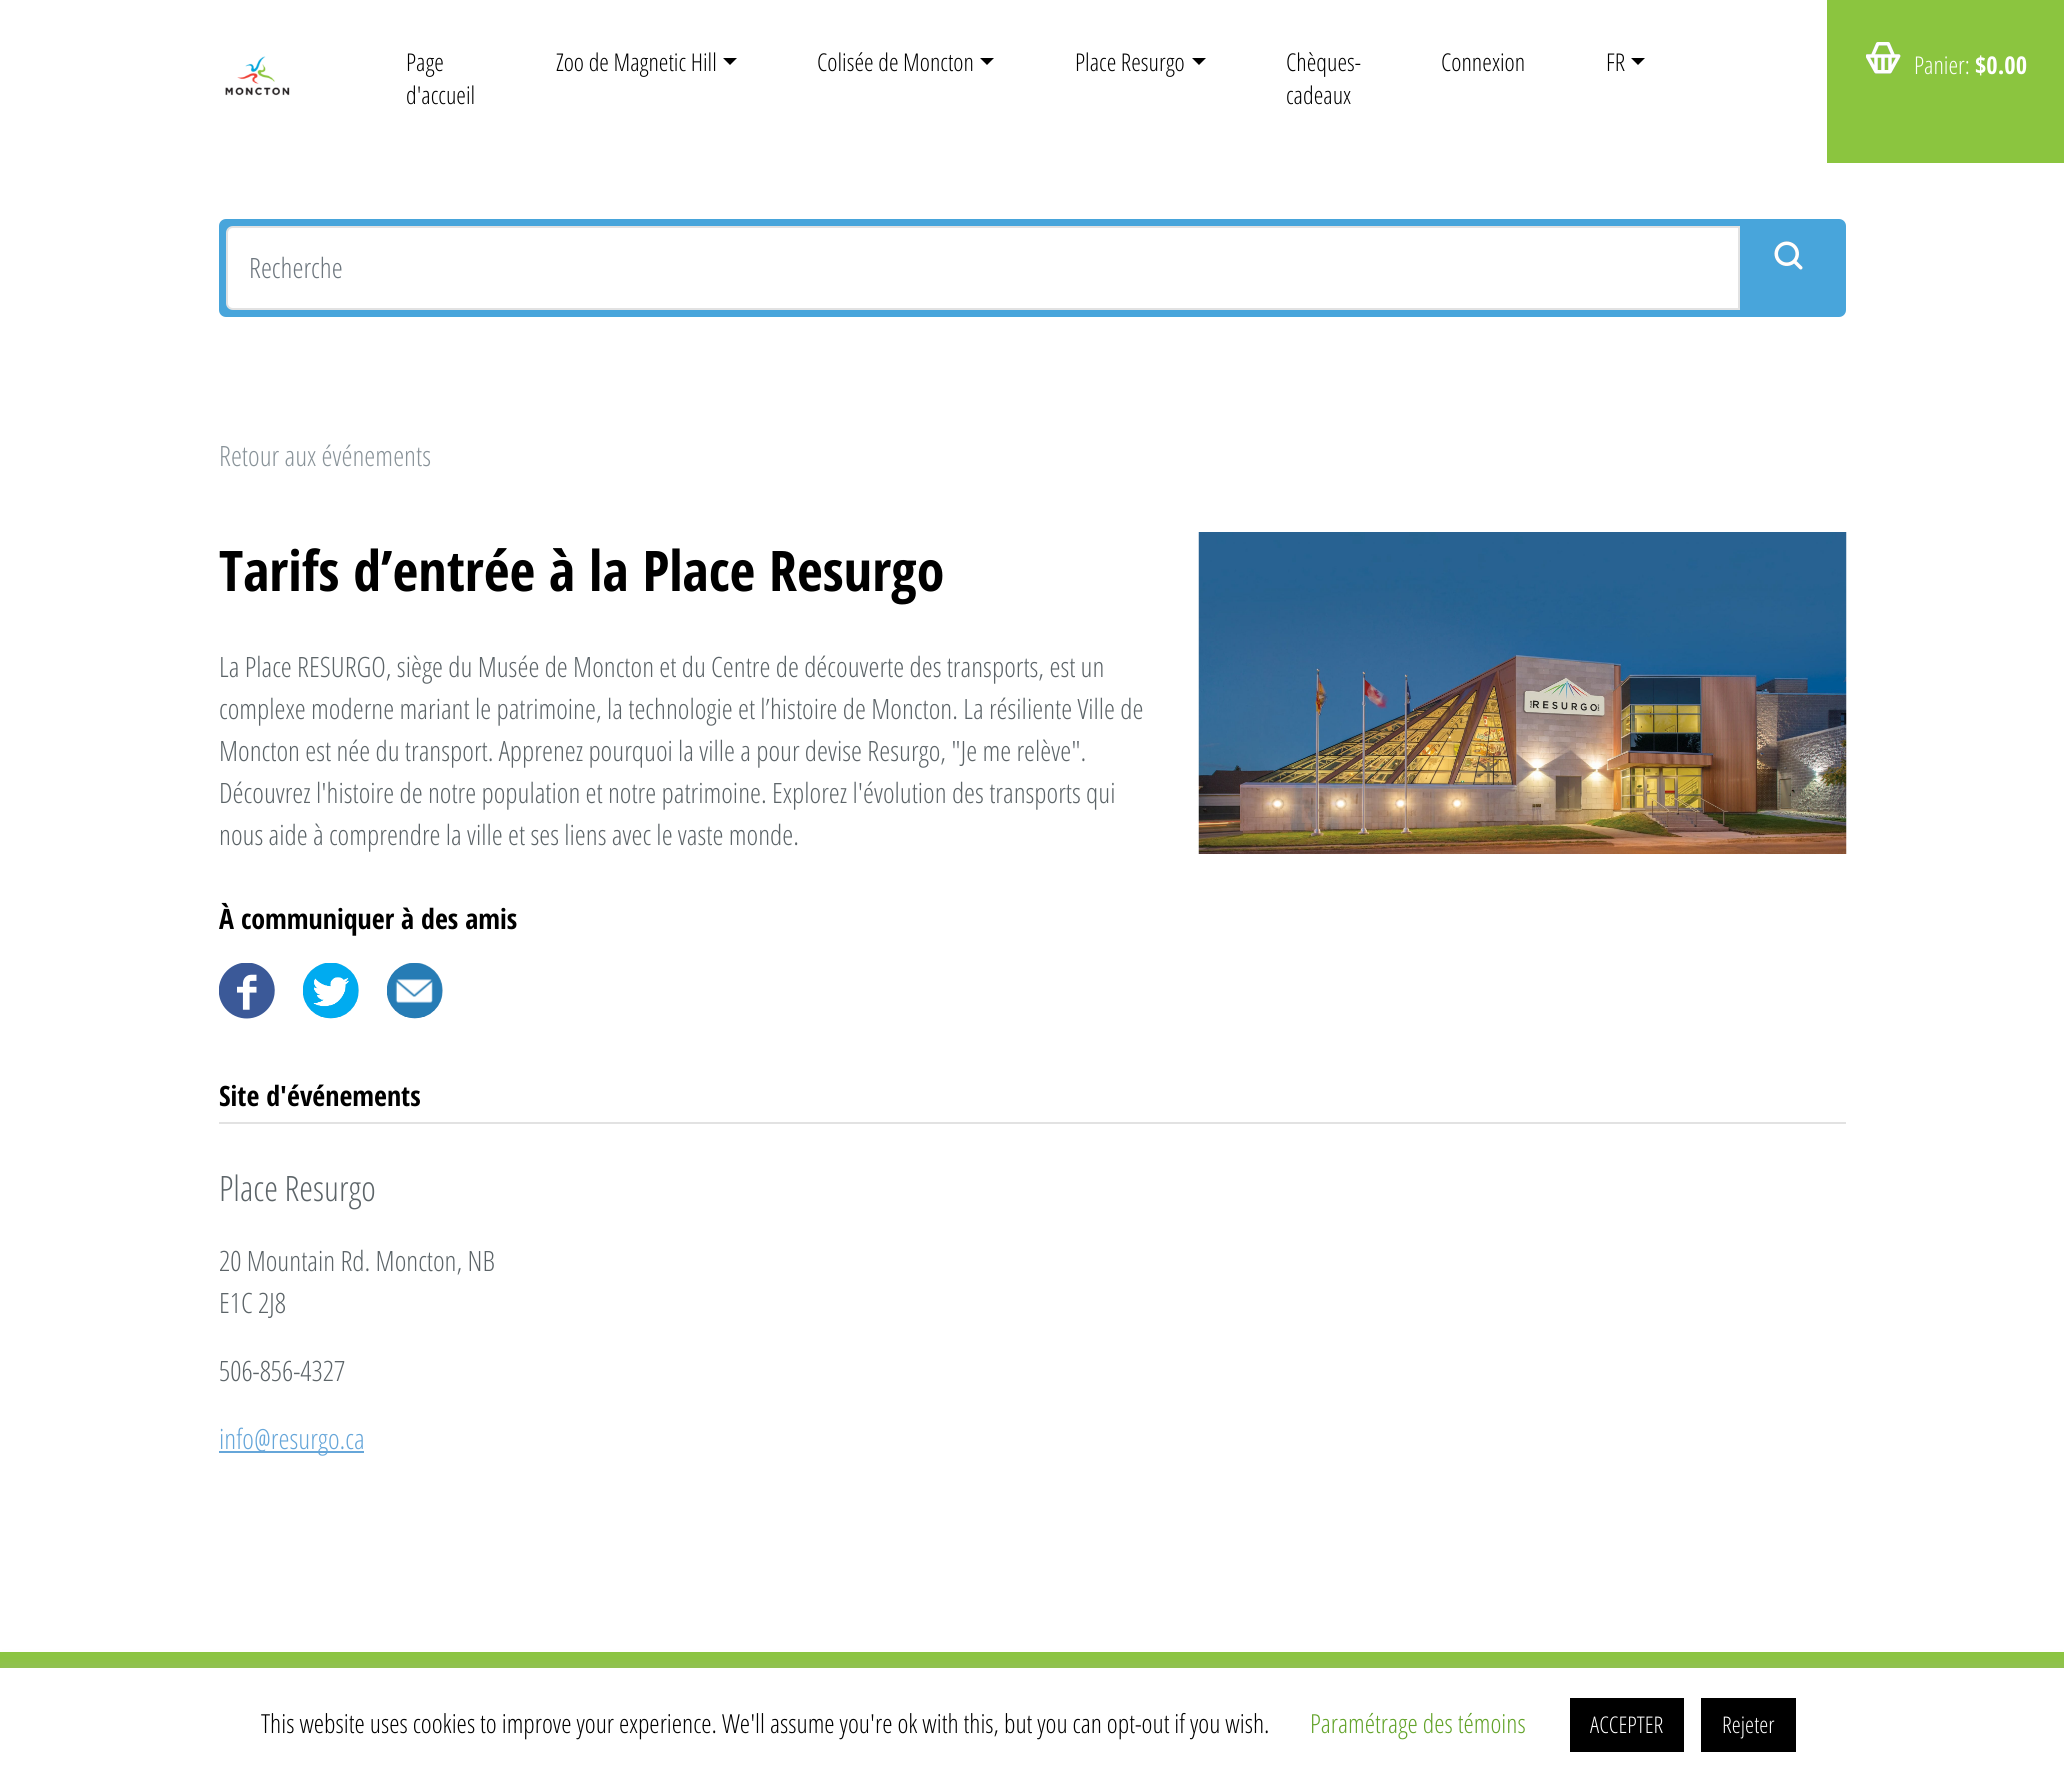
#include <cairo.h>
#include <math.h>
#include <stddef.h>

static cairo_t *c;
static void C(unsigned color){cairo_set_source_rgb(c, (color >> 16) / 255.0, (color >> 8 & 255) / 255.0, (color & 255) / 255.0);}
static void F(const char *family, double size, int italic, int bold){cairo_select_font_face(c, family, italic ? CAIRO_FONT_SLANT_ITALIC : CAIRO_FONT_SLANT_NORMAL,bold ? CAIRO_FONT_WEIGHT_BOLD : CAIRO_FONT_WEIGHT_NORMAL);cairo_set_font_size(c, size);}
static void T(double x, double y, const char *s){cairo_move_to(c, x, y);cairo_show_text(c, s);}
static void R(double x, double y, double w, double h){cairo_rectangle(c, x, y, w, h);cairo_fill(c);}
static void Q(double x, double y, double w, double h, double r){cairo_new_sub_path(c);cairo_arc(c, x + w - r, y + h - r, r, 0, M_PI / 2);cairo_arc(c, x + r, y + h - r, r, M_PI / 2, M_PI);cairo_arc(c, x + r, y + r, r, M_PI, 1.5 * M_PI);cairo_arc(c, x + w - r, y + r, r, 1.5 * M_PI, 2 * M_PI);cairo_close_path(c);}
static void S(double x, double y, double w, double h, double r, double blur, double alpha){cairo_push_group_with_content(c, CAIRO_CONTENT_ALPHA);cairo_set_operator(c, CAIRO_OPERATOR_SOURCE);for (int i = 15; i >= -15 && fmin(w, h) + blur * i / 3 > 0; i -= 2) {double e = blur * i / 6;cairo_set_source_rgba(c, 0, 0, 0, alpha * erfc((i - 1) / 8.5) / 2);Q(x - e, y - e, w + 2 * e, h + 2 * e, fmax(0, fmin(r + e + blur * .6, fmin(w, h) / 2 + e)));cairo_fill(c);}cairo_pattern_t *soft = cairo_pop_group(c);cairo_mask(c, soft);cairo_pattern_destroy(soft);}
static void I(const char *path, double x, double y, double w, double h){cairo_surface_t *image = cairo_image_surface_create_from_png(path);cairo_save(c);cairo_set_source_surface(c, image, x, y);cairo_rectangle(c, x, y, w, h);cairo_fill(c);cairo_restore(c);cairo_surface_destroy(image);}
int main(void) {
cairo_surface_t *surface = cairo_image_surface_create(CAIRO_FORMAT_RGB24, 2064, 1781);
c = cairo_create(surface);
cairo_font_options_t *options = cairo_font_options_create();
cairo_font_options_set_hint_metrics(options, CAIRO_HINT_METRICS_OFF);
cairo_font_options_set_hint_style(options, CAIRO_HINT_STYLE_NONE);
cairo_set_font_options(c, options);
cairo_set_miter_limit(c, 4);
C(0xffffff);
cairo_paint(c);
I("1.png",225,56,65,40);
F("Open Sans Condensed Light",24.5,0,0);
C(0x000000);
T(406,71,"Page");
T(406,104,"d'accueil");
T(556,71,"Zoo de Magnetic Hill");
cairo_new_path(c);
cairo_move_to(c,723,58);
cairo_line_to(c,737,58);
cairo_line_to(c,730,65);
cairo_close_path(c);
cairo_fill(c);
T(817,71,"Colisée de Moncton");
cairo_new_path(c);
cairo_move_to(c,980,58);
cairo_line_to(c,994,58);
cairo_line_to(c,987,65);
cairo_close_path(c);
cairo_fill(c);
T(1075,71,"Place Resurgo");
cairo_new_path(c);
cairo_move_to(c,1192,58);
cairo_line_to(c,1206,58);
cairo_line_to(c,1199,65);
cairo_close_path(c);
cairo_fill(c);
T(1286,71,"Chèques-");
T(1286,104,"cadeaux");
T(1441,71,"Connexion");
T(1606,71,"FR");
cairo_new_path(c);
cairo_move_to(c,1631,58);
cairo_line_to(c,1645,58);
cairo_line_to(c,1638,65);
cairo_close_path(c);
cairo_fill(c);
C(0x8bc53f);
R(1827,0,237,163);
I("2.png",1866,42,35,32);
C(0xffffff);
T(1914,74,"Panier:");
F("Open Sans Condensed",24.5,0,1);
T(1975,74,"$0.00");
C(0x48a5db);
Q(219,219,1627,98,7);
cairo_fill(c);
C(0xffffff);
cairo_new_path(c);
cairo_move_to(c,233,227);
cairo_line_to(c,1739,227);
cairo_line_to(c,1739,309);
cairo_line_to(c,233,309);
cairo_curve_to(c,229.5,309,227,306.5,227,303);
cairo_line_to(c,227,233);
cairo_curve_to(c,227,229.5,229.5,227,233,227);
cairo_close_path(c);
cairo_fill_preserve(c);
C(0xe2e2e2);
cairo_stroke(c);
F("Open Sans Condensed Light",28,0,0);
C(0x6c757d);
T(249,278,"Recherche");
I("3.png",1774,241,29,29);
C(0x899399);
T(219,466,"Retour aux événements");
F("Open Sans Condensed",56,0,1);
C(0x000000);
T(219,591,"Tarifs d’entrée à la Place Resurgo");
F("Open Sans Condensed Light",28,0,0);
C(0x5c6468);
T(219,677,"La Place RESURGO, siège du Musée de Moncton et du Centre de découverte des transports, est un");
T(219,719,"complexe moderne mariant le patrimoine, la technologie et l’histoire de Moncton. La résiliente Ville de");
T(219,761,"Moncton est née du transport. Apprenez pourquoi la ville a pour devise Resurgo, \"Je me relève\".");
T(219,803,"Découvrez l'histoire de notre population et notre patrimoine. Explorez l'évolution des transports qui");
T(219,845,"nous aide à comprendre la ville et ses liens avec le vaste monde.");
F("Open Sans Condensed",28,0,1);
C(0x000000);
T(219,929,"À communiquer à des amis");
I("4.png",219,963,56,56);
I("5.png",303,963,56,56);
I("6.png",387,963,56,56);
I("7.png",1198,532,649,322);
C(0xe2e2e2);
R(219,1122,1627,2);
C(0x000000);
T(219,1106,"Site d'événements");
F("Open Sans Condensed Light",35,0,0);
C(0x5c6468);
T(219,1201,"Place Resurgo");
F("Open Sans Condensed Light",28,0,0);
T(219,1271,"20 Mountain Rd. Moncton, NB");
T(219,1313,"E1C 2J8");
T(219,1381,"506-856-4327");
C(0x66a6d9);
R(219,1451,145,2);
T(219,1449,"info@resurgo.ca");
C(0x8bc53f);
R(0,1652,2064,16);
C(0xacabab);
S(0,1666,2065,114,0,9,.3);
C(0xffffff);
R(0,1668,2064,113);
F("Open Sans Condensed Light",26.25,0,0);
C(0x000000);
T(261,1733,"This website uses cookies to improve your experience. We'll assume you're ok with this, but you can opt-out if you wish.");
C(0x62a329);
T(1310,1733,"Paramétrage des témoins");
C(0x000000);
R(1570,1698,114,54);
F("Open Sans Condensed Light",23,0,0);
C(0xffffff);
T(1590,1733,"ACCEPTER");
C(0x000000);
R(1701,1698,95,54);
C(0xffffff);
T(1722,1733,"Rejeter");
cairo_surface_write_to_png(surface, "o.png");
cairo_font_options_destroy(options);
cairo_destroy(c);
cairo_surface_destroy(surface);
return 0;
}
